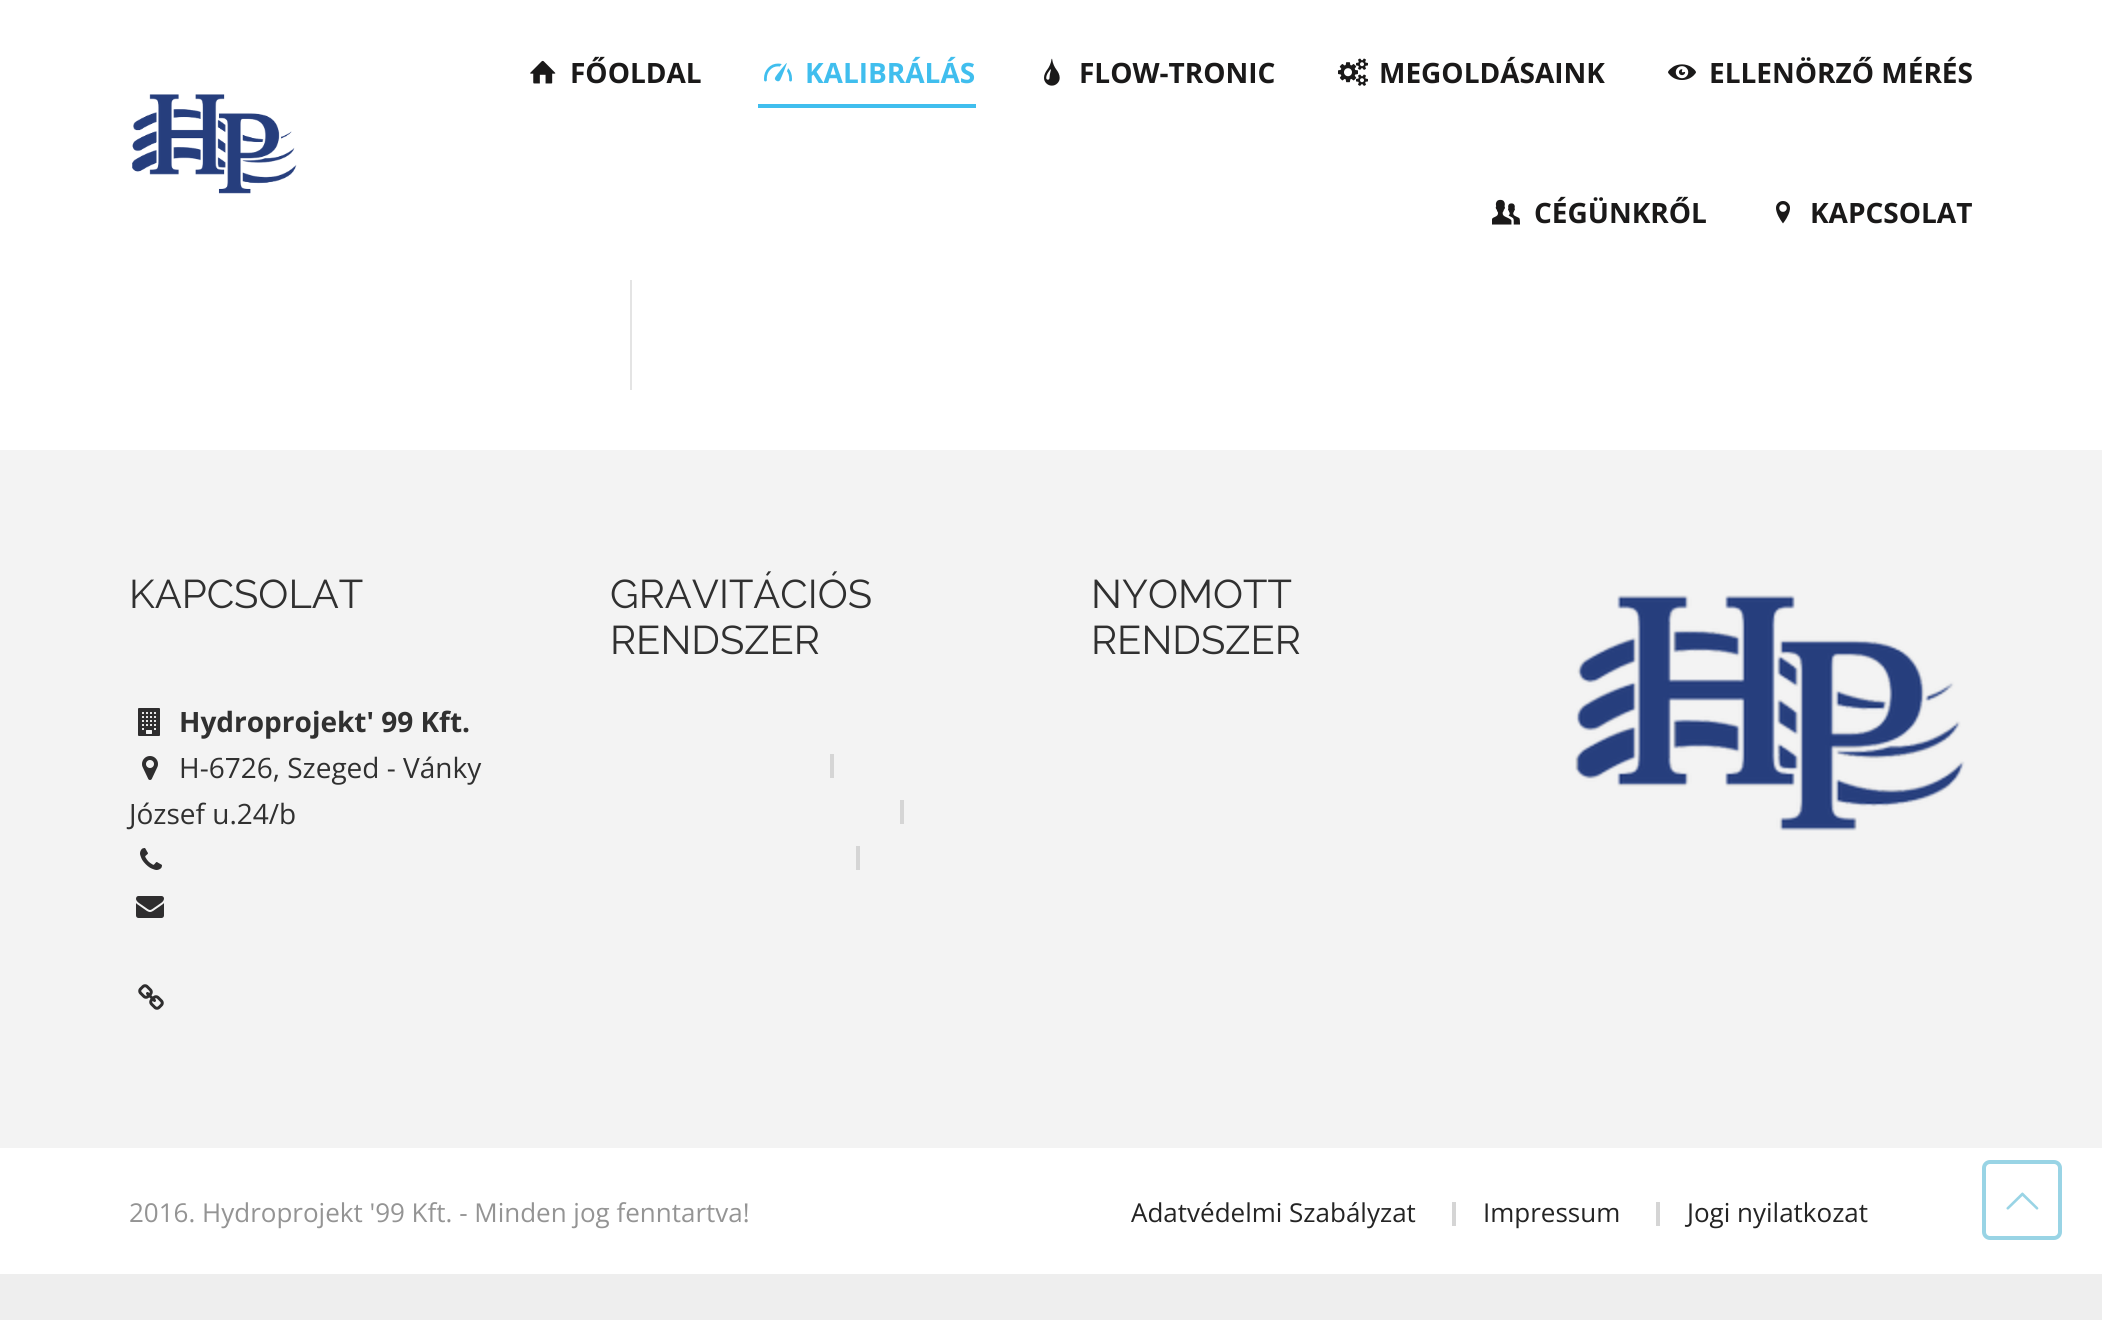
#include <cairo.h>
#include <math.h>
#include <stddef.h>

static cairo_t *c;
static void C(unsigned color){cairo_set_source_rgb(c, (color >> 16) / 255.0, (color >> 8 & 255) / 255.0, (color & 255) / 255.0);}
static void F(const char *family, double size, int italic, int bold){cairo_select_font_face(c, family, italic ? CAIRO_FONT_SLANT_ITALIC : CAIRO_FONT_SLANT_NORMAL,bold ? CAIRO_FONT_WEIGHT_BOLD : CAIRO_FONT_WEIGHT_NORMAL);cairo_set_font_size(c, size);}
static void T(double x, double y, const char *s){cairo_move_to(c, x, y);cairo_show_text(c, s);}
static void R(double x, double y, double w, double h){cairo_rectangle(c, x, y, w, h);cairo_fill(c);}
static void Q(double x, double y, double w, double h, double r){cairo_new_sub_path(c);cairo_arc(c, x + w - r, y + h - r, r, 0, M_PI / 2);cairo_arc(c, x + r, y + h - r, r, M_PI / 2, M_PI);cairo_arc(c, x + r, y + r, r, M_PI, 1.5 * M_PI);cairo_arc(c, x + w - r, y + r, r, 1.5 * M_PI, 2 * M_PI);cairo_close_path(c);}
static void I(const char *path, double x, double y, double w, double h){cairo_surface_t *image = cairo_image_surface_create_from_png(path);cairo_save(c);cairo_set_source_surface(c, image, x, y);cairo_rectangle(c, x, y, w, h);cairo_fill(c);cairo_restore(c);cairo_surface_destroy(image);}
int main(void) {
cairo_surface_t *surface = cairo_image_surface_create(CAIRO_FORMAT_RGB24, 2102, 1320);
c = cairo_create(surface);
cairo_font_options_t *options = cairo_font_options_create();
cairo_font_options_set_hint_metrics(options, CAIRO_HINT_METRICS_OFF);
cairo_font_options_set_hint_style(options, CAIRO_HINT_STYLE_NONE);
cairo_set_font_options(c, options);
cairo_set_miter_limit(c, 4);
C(0xeeeeee);
cairo_paint(c);
C(0xffffff);
R(0,0,2102,1274);
I("1.png",132,94,165,100);
I("2.png",530,60,26,24);
F("Open Sans",28,0,1);
C(0x1a1919);
T(570,83,"FŐOLDAL");
I("3.png",764,63,28,19);
C(0x40beee);
T(805,83,"KALIBRÁLÁS");
R(758,104,218,4);
I("4.png",1044,58,16,28);
C(0x1a1919);
T(1079,83,"FLOW-TRONIC");
I("5.png",1338,58,30,28);
T(1379,83,"MEGOLDÁSAINK");
I("6.png",1668,64,28,16);
T(1709,83,"ELLENÖRZŐ MÉRÉS");
I("7.png",1492,199,28,26);
T(1534,223,"CÉGÜNKRŐL");
I("8.png",1776,201,14,23);
cairo_save(c);
cairo_rectangle(c,1764,176,208,72);
cairo_clip(c);
T(1810,223,"KAPCSOLAT");
cairo_restore(c);
C(0xe4e4e4);
R(630,280,2,110);
C(0xf3f3f3);
R(0,450,2102,698);
F("Raleway",40,0,0);
C(0x303030);
T(129,608,"KAPCSOLAT");
I("9.png",138,708,22,28);
F("Open Sans",28,0,1);
T(179,732,"Hydroprojekt' 99 Kft.");
I("10.png",142,756,16,24);
F("Open Sans",28,0,0);
T(179,778,"H-6726, Szeged - Vánky");
T(129,824,"József u.24/b");
I("11.png",140,848,22,22);
I("12.png",136,896,28,22);
I("13.png",138,984,26,26);
F("Raleway",40,0,0);
T(610,608,"GRAVITÁCIÓS");
T(610,654,"RENDSZER");
C(0xd5d5d5);
R(830,754,4,24);
R(900,800,4,24);
R(856,846,4,24);
C(0x303030);
T(1091,608,"NYOMOTT");
T(1091,654,"RENDSZER");
I("14.png",1575,595,390,236);
F("Open Sans",26,0,0);
C(0x949494);
T(129,1222,"2016. Hydroprojekt '99 Kft. - Minden jog fenntartva!");
C(0x242424);
T(1131,1222,"Adatvédelmi Szabályzat");
C(0xd5d5d5);
R(1452,1202,4,24);
C(0x242424);
T(1483,1222,"Impressum");
C(0xd5d5d5);
R(1656,1202,4,24);
C(0x242424);
T(1687,1222,"Jogi nyilatkozat");
Q(1984,1162,76,76,6);
C(0x99d4e5);
cairo_set_line_width(c,4);
cairo_stroke(c);
I("15.png",2006,1192,33,18);
cairo_surface_write_to_png(surface, "o.png");
cairo_font_options_destroy(options);
cairo_destroy(c);
cairo_surface_destroy(surface);
return 0;
}
